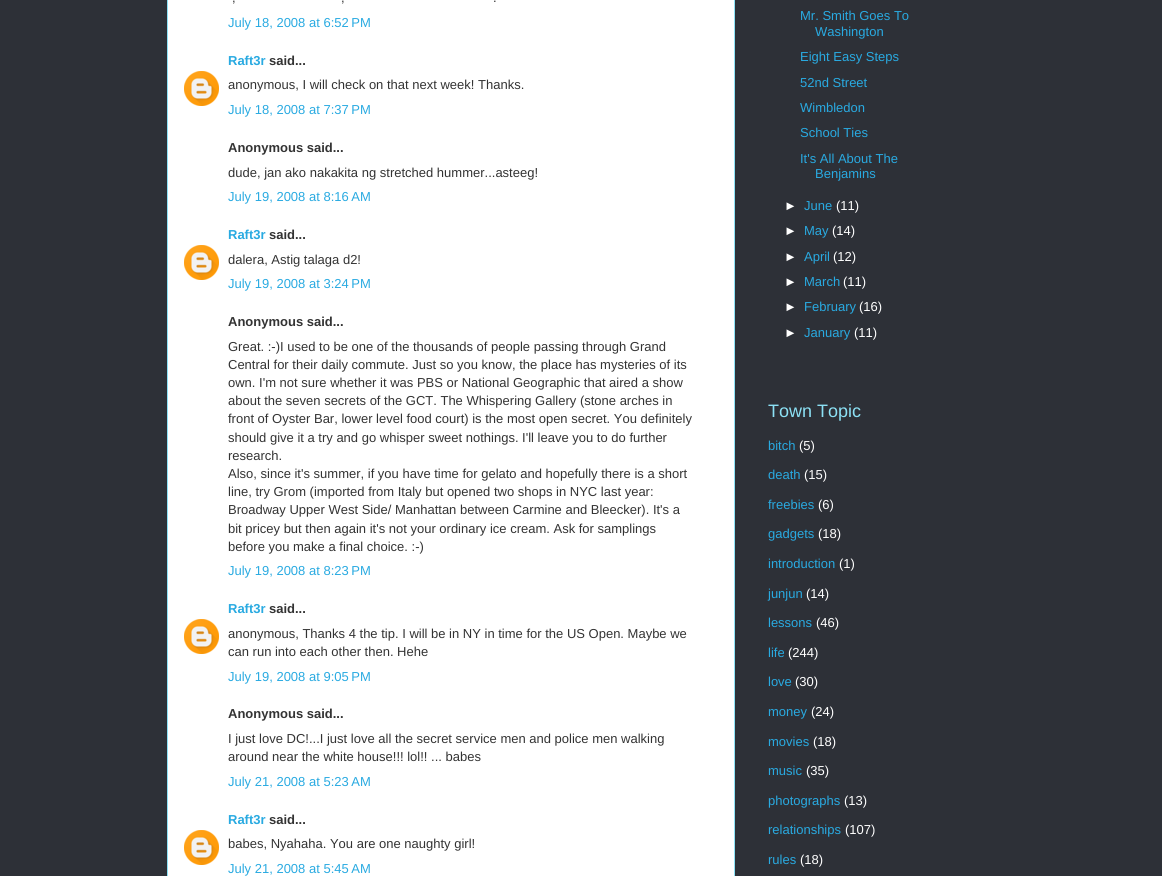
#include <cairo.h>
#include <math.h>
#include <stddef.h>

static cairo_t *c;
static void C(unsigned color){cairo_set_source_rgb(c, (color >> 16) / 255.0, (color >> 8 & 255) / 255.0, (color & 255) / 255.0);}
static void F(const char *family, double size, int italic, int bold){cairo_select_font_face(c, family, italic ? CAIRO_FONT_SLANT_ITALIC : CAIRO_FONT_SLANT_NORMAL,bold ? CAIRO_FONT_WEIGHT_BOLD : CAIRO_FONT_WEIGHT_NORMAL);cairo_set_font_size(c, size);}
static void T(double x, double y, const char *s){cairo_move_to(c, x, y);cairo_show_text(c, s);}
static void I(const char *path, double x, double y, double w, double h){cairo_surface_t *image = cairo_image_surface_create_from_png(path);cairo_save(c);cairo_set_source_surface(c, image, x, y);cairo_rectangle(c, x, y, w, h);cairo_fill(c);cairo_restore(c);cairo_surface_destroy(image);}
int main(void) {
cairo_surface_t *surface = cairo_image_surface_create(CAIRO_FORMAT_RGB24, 1162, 876);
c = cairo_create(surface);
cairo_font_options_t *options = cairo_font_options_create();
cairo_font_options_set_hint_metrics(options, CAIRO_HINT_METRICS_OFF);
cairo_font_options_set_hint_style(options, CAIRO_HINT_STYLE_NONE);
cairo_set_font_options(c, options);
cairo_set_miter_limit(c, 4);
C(0x2d3037);
cairo_paint(c);
C(0xffffff);
cairo_rectangle(c,167.5,-.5,567,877);
cairo_fill_preserve(c);
C(0x8ce1f5);
cairo_set_line_width(c,1);
cairo_stroke(c);
F("Liberation Sans",13,0,0);
C(0x333333);
T(232,2,",");
T(341,2,",");
T(493,2,".");
C(0x29aae1);
T(228,27,"July 18, 2008 at 6:52 PM");
F("Liberation Sans",13,0,1);
T(228,65,"Raft3r");
C(0x333333);
T(269,65,"said...");
I("1.png",184,71,35,35);
F("Liberation Sans",13,0,0);
T(228,89,"anonymous, I will check on that next week! Thanks.");
C(0x29aae1);
T(228,114,"July 18, 2008 at 7:37 PM");
F("Liberation Sans",13,0,1);
C(0x333333);
T(228,152,"Anonymous said...");
F("Liberation Sans",13,0,0);
T(228,177,"dude, jan ako nakakita ng stretched hummer...asteeg!");
C(0x29aae1);
T(228,201,"July 19, 2008 at 8:16 AM");
F("Liberation Sans",13,0,1);
T(228,239,"Raft3r");
C(0x333333);
T(269,239,"said...");
I("1.png",184,245,35,35);
F("Liberation Sans",13,0,0);
T(228,264,"dalera, Astig talaga d2!");
C(0x29aae1);
T(228,288,"July 19, 2008 at 3:24 PM");
F("Liberation Sans",13,0,1);
C(0x333333);
T(228,326,"Anonymous said...");
F("Liberation Sans",13,0,0);
T(228,351,"Great. :-)I used to be one of the thousands of people passing through Grand");
T(228,369,"Central for their daily commute. Just so you know, the place has mysteries of its");
T(228,387,"own. I'm not sure whether it was PBS or National Geographic that aired a show");
T(228,405,"about the seven secrets of the GCT. The Whispering Gallery (stone arches in");
T(228,423,"front of Oyster Bar, lower level food court) is the most open secret. You definitely");
T(228,442,"should give it a try and go whisper sweet nothings. I'll leave you to do further");
T(228,460,"research.");
T(228,478,"Also, since it's summer, if you have time for gelato and hopefully there is a short");
T(228,496,"line, try Grom (imported from Italy but opened two shops in NYC last year:");
T(228,514,"Broadway Upper West Side/ Manhattan between Carmine and Bleecker). It's a");
T(228,533,"bit pricey but then again it's not your ordinary ice cream. Ask for samplings");
T(228,551,"before you make a final choice. :-)");
C(0x29aae1);
T(228,575,"July 19, 2008 at 8:23 PM");
F("Liberation Sans",13,0,1);
T(228,613,"Raft3r");
C(0x333333);
T(269,613,"said...");
I("1.png",184,619,35,35);
F("Liberation Sans",13,0,0);
T(228,638,"anonymous, Thanks 4 the tip. I will be in NY in time for the US Open. Maybe we");
T(228,656,"can run into each other then. Hehe");
C(0x29aae1);
T(228,681,"July 19, 2008 at 9:05 PM");
F("Liberation Sans",13,0,1);
C(0x333333);
T(228,718,"Anonymous said...");
F("Liberation Sans",13,0,0);
T(228,743,"I just love DC!...I just love all the secret service men and police men walking");
T(228,761,"around near the white house!!! lol!! ... babes");
C(0x29aae1);
T(228,786,"July 21, 2008 at 5:23 AM");
F("Liberation Sans",13,0,1);
T(228,824,"Raft3r");
C(0x333333);
T(269,824,"said...");
I("1.png",184,830,35,35);
F("Liberation Sans",13,0,0);
T(228,848,"babes, Nyahaha. You are one naughty girl!");
C(0x29aae1);
T(228,873,"July 21, 2008 at 5:45 AM");
T(800,20,"Mr. Smith Goes To");
T(815,36,"Washington");
T(800,61,"Eight Easy Steps");
T(800,87,"52nd Street");
T(800,112,"Wimbledon");
T(800,137,"School Ties");
T(800,163,"It's All About The");
T(815,178,"Benjamins");
C(0xffffff);
T(784,210,"►");
C(0x29aae1);
T(804,210,"June");
C(0xffffff);
T(836,210,"(11)");
T(784,235,"►");
C(0x29aae1);
T(804,235,"May");
C(0xffffff);
T(832,235,"(14)");
T(784,261,"►");
C(0x29aae1);
T(804,261,"April");
C(0xffffff);
T(833,261,"(12)");
T(784,286,"►");
C(0x29aae1);
T(804,286,"March");
C(0xffffff);
T(843,286,"(11)");
T(784,311,"►");
C(0x29aae1);
T(804,311,"February");
C(0xffffff);
T(859,311,"(16)");
T(784,337,"►");
C(0x29aae1);
T(804,337,"January");
C(0xffffff);
T(854,337,"(11)");
F("Liberation Sans",18,0,0);
C(0x8ce1f5);
T(768,417,"Town Topic");
F("Liberation Sans",13,0,0);
C(0x29aae1);
T(768,450,"bitch");
C(0xffffff);
T(799,450,"(5)");
C(0x29aae1);
T(768,479,"death");
C(0xffffff);
T(804,479,"(15)");
C(0x29aae1);
T(768,509,"freebies");
C(0xffffff);
T(818,509,"(6)");
C(0x29aae1);
T(768,538,"gadgets");
C(0xffffff);
T(818,538,"(18)");
C(0x29aae1);
T(768,568,"introduction");
C(0xffffff);
T(839,568,"(1)");
C(0x29aae1);
T(768,598,"junjun");
C(0xffffff);
T(806,598,"(14)");
C(0x29aae1);
T(768,627,"lessons");
C(0xffffff);
T(816,627,"(46)");
C(0x29aae1);
T(768,657,"life");
C(0xffffff);
T(788,657,"(244)");
C(0x29aae1);
T(768,686,"love");
C(0xffffff);
T(795,686,"(30)");
C(0x29aae1);
T(768,716,"money");
C(0xffffff);
T(811,716,"(24)");
C(0x29aae1);
T(768,746,"movies");
C(0xffffff);
T(813,746,"(18)");
C(0x29aae1);
T(768,775,"music");
C(0xffffff);
T(806,775,"(35)");
C(0x29aae1);
T(768,805,"photographs");
C(0xffffff);
T(844,805,"(13)");
C(0x29aae1);
T(768,834,"relationships");
C(0xffffff);
T(845,834,"(107)");
C(0x29aae1);
T(768,864,"rules");
C(0xffffff);
T(800,864,"(18)");
cairo_surface_write_to_png(surface, "o.png");
cairo_font_options_destroy(options);
cairo_destroy(c);
cairo_surface_destroy(surface);
return 0;
}
